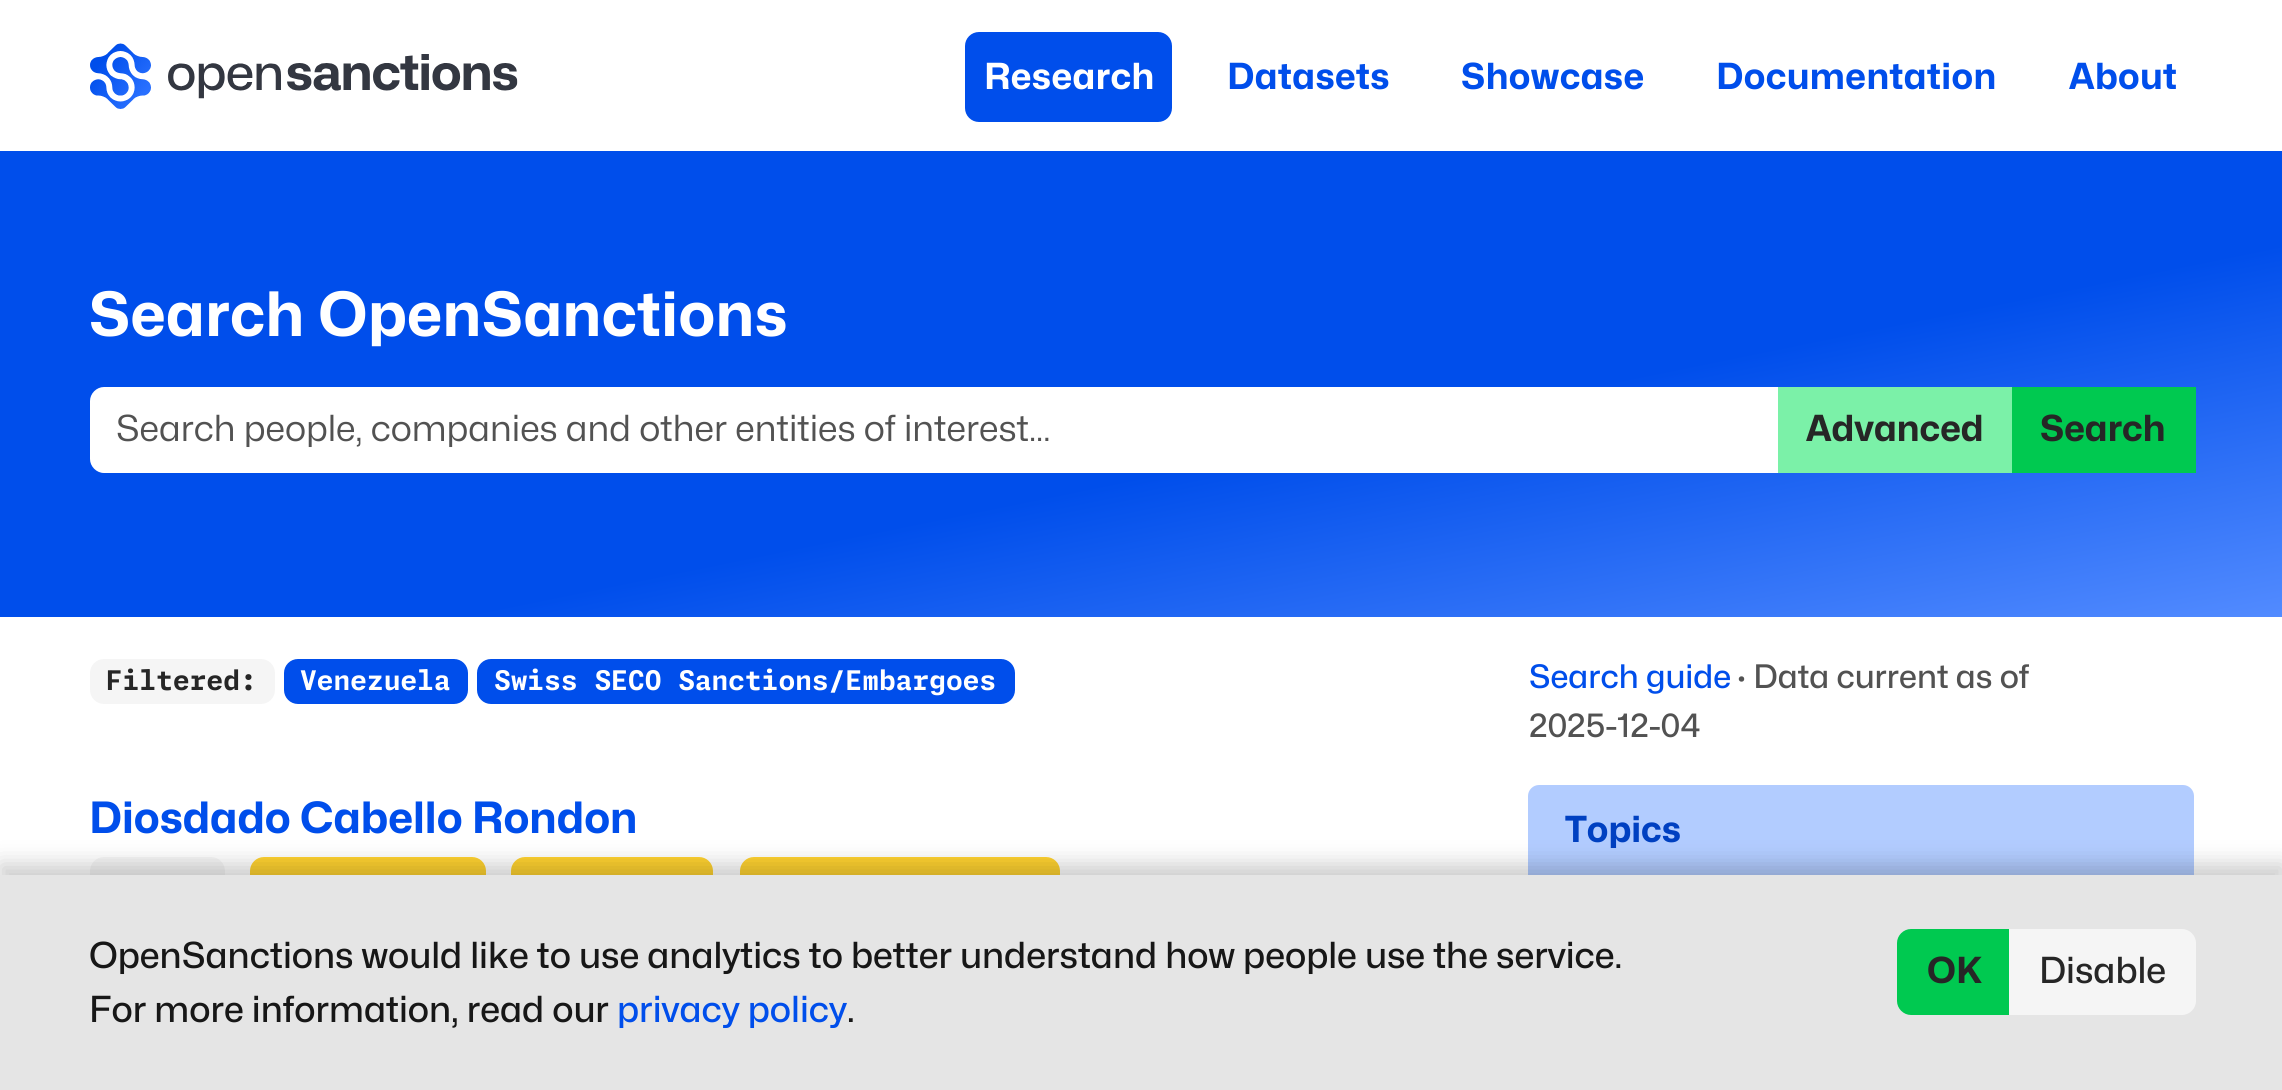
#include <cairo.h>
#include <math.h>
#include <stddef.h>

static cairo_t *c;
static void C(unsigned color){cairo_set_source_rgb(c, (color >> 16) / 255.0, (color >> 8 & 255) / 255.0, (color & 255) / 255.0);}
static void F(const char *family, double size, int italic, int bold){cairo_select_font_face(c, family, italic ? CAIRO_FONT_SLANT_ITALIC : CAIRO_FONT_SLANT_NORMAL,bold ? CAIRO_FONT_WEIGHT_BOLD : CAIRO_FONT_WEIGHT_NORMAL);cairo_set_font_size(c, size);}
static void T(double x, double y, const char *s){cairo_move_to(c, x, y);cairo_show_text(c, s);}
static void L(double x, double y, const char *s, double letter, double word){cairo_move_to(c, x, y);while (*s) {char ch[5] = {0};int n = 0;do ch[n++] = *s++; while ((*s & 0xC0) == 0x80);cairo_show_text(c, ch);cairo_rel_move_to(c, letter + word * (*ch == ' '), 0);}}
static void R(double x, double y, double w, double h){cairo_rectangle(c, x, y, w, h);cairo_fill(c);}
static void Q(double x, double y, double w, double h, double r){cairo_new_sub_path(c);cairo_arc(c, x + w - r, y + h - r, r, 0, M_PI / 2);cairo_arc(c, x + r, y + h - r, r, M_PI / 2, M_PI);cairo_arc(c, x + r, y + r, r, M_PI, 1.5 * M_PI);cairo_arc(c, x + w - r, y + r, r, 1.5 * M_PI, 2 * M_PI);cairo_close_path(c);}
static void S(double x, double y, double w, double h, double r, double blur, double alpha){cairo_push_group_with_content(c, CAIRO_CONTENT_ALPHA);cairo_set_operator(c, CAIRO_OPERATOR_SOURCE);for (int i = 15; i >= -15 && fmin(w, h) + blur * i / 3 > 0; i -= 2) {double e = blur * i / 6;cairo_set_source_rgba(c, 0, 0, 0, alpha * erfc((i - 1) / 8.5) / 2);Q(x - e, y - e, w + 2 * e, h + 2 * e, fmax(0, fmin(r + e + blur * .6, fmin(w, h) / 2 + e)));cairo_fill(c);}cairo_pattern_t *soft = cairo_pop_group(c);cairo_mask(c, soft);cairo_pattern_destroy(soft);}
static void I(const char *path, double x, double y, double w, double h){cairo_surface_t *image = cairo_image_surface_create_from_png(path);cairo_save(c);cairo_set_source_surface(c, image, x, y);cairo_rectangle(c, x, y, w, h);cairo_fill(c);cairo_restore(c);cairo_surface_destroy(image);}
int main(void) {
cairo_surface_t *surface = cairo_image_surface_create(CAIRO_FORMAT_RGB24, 2282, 1090);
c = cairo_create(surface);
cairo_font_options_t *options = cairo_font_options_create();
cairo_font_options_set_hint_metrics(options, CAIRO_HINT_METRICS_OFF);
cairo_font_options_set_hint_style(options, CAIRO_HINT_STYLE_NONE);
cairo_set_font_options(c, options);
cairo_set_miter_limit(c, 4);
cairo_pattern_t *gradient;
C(0xffffff);
cairo_paint(c);
I("1.png",90,43,428,66);
C(0x004eeb);
Q(965,32,207,90,14);
cairo_fill(c);
F("Mona Sans",36,0,1);
C(0xffffff);
L(984,89,"Research",.4,0);
C(0x004eeb);
L(1227,89,"Datasets",.4,0);
L(1461,89,"Showcase",.4,0);
L(1716,89,"Documentation",.4,0);
L(2069,89,"About",.4,0);
gradient = cairo_pattern_create_linear(1051,-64,1233,831);
cairo_pattern_add_color_stop_rgba(gradient,0,0,0.306,0.922,1);
cairo_pattern_add_color_stop_rgba(gradient,.6,0,0.306,0.922,1);
cairo_pattern_add_color_stop_rgba(gradient,1,0.322,0.545,1,1);
cairo_set_source(c,gradient);
cairo_pattern_destroy(gradient);
R(0,151,2282,466);
F("Mona Sans",61.25,0,1);
C(0xffffff);
L(89,336,"Search OpenSanctions",.4,0);
cairo_new_path(c);
cairo_move_to(c,104,387);
cairo_line_to(c,1780,387);
cairo_line_to(c,1780,473);
cairo_line_to(c,104,473);
cairo_curve_to(c,96.5,473,90,466.5,90,459);
cairo_line_to(c,90,401);
cairo_curve_to(c,90,393.5,96.5,387,104,387);
cairo_close_path(c);
cairo_fill(c);
F("Mona Sans",36,0,0);
C(0x525252);
T(116,441,"Search people, companies and other entities of interest...");
C(0x7bf1a8);
R(1778,387,234,86);
F("Mona Sans",36,0,1);
C(0x262626);
T(1806,441,"Advanced");
C(0x00c950);
R(2012,387,184,86);
C(0x262626);
T(2040,441,"Search");
C(0xf5f5f5);
Q(90,659,185,45,14);
cairo_fill(c);
F("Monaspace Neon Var",27,0,1);
C(0x262626);
T(106,690,"Filtered:");
C(0x004eeb);
Q(284,659,184,45,14);
cairo_fill(c);
C(0xffffff);
T(300,690,"Venezuela");
C(0x004eeb);
Q(477,659,538,45,14);
cairo_fill(c);
C(0xffffff);
T(494,690,"Swiss SECO Sanctions/Embargoes");
F("Mona Sans Medium",32.5,0,0);
C(0x004eeb);
T(1529,688,"Search guide");
C(0x525252);
T(1737,688,"· Data current as of");
T(1529,737,"2025-12-04");
F("Mona Sans",43.25,0,1);
C(0x004eeb);
T(89,833,"Diosdado Cabello Rondon");
C(0xf5f5f5);
Q(90,857,135,45,14);
cairo_fill(c);
C(0xffd230);
Q(250,857,236,45,14);
cairo_fill(c);
Q(511,857,202,45,14);
cairo_fill(c);
Q(740,857,320,45,14);
cairo_fill(c);
C(0xb2ccff);
cairo_new_path(c);
cairo_move_to(c,1539,785);
cairo_line_to(c,2183,785);
cairo_curve_to(c,2189,785,2194,790,2194,796);
cairo_line_to(c,2194,875);
cairo_line_to(c,1528,875);
cairo_line_to(c,1528,796);
cairo_curve_to(c,1528,790,1533,785,1539,785);
cairo_close_path(c);
cairo_fill(c);
F("Mona Sans",36,0,1);
C(0x0040c1);
T(1565,842,"Topics");
C(0x000000);
S(0,864,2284,216,0,11,.2);
C(0xe5e5e5);
R(0,875,2282,215);
F("Mona Sans Medium",36,0,0);
C(0x171717);
T(89,968,"OpenSanctions would like to use analytics to better understand how people use the service.");
T(89,1022,"For more information, read our");
C(0x004eeb);
T(617,1022,"privacy policy");
C(0x171717);
T(847,1022,".");
C(0x00c950);
cairo_new_path(c);
cairo_move_to(c,1911,930);
cairo_line_to(c,2011,930);
cairo_line_to(c,2011,1014);
cairo_line_to(c,1911,1014);
cairo_curve_to(c,1904,1014,1898,1008,1898,1001);
cairo_line_to(c,1898,943);
cairo_curve_to(c,1898,936,1904,930,1911,930);
cairo_close_path(c);
cairo_fill_preserve(c);
cairo_stroke(c);
F("Mona Sans",36,0,1);
C(0x262626);
T(1927,983,"OK");
C(0xf5f5f5);
cairo_new_path(c);
cairo_move_to(c,2010,930);
cairo_line_to(c,2182,930);
cairo_curve_to(c,2189,930,2195,936,2195,943);
cairo_line_to(c,2195,1001);
cairo_curve_to(c,2195,1008,2189,1014,2182,1014);
cairo_line_to(c,2010,1014);
cairo_close_path(c);
cairo_fill_preserve(c);
cairo_stroke(c);
F("Mona Sans Medium",36,0,0);
C(0x262626);
T(2039,983,"Disable");
cairo_surface_write_to_png(surface, "o.png");
cairo_font_options_destroy(options);
cairo_destroy(c);
cairo_surface_destroy(surface);
return 0;
}
